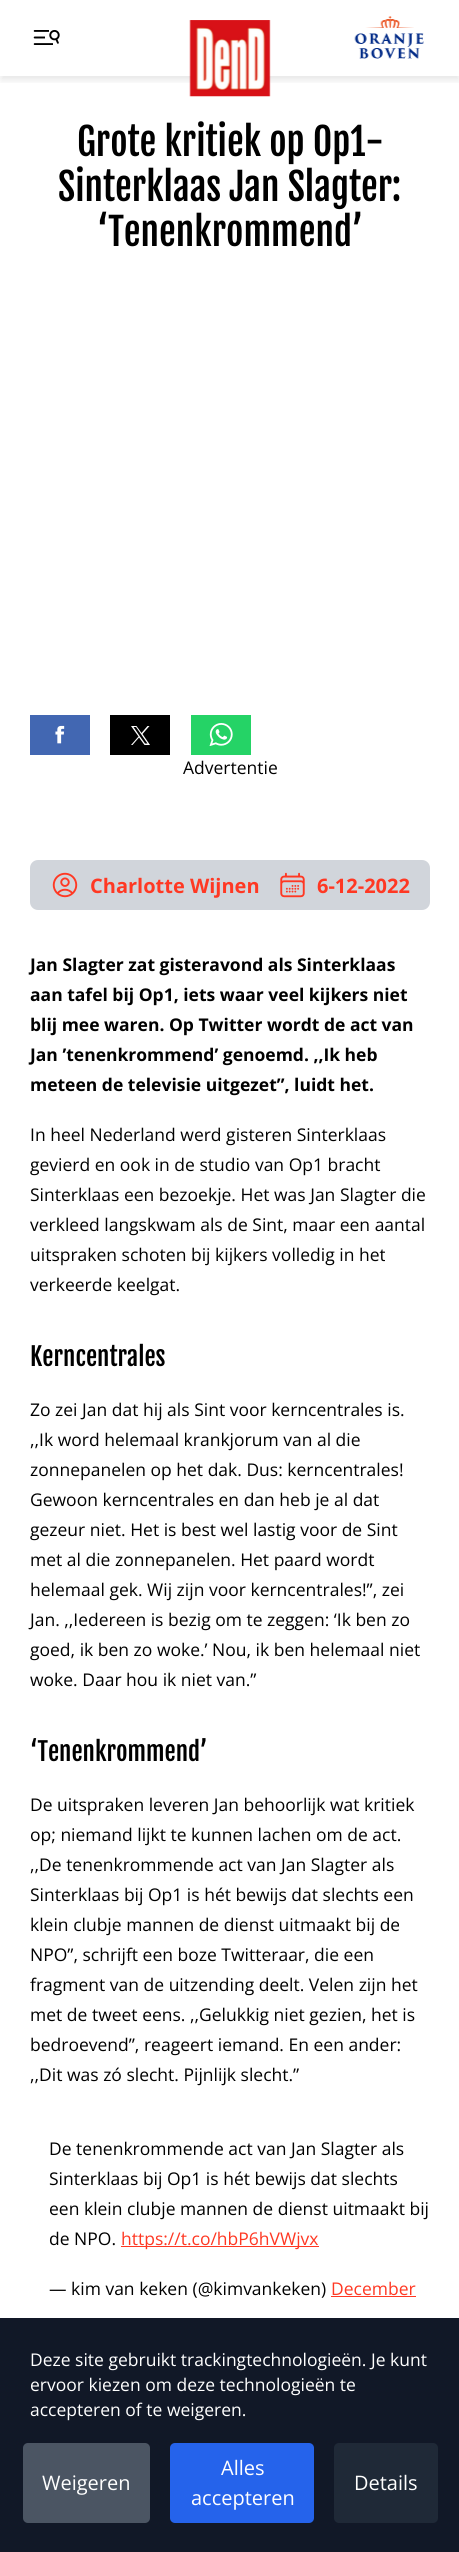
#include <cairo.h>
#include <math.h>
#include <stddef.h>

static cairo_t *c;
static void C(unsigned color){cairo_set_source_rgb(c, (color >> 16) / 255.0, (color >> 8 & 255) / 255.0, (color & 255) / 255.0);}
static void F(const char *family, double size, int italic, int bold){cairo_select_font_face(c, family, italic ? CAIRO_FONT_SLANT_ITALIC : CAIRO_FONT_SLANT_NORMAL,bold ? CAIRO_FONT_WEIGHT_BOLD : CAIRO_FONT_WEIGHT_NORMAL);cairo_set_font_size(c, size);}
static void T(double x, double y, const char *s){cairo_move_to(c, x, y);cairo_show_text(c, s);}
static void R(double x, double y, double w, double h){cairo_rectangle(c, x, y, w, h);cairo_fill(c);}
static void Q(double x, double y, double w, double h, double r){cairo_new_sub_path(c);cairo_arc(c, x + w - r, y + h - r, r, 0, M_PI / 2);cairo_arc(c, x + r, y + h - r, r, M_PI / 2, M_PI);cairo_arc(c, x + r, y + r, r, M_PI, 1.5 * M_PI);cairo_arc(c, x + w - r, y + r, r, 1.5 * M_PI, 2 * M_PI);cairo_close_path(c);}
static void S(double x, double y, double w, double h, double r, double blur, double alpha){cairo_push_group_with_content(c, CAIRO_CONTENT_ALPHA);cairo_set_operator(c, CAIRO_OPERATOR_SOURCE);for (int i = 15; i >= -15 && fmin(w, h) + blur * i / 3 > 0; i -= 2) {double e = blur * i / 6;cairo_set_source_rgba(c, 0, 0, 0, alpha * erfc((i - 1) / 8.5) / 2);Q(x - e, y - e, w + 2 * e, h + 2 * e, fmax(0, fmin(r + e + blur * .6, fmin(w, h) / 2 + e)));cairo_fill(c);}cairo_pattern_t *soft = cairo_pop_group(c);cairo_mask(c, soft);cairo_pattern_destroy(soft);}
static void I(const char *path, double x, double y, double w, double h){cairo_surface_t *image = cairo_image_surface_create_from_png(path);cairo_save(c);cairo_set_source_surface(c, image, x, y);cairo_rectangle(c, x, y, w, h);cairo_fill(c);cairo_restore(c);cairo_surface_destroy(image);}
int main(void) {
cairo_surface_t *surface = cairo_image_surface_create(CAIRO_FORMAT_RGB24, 459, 2552);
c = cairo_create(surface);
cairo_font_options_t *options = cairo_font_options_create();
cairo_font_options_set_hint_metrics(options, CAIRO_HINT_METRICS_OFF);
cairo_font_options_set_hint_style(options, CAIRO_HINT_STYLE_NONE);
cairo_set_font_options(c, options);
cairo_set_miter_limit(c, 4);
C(0xffffff);
cairo_paint(c);
cairo_save(c);
cairo_rectangle(c,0,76,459,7);
cairo_clip(c);
C(0x000000);
S(1,6,458,74,0,4,.1);
cairo_restore(c);
I("1.png",33,30,27,15);
I("2.png",189,20,82,77);
I("3.png",354,16,70,43);
F("Fjalla One",37.5,0,0);
C(0x000000);
T(77,156,"Grote kritiek op Op1-");
T(58,201,"Sinterklaas Jan Slagter:");
T(97,246,"‘Tenenkrommend’");
I("4.png",30,715,60,40);
R(110,715,60,40);
C(0xffffff);
cairo_new_path(c);
cairo_move_to(c,142.5,734);
cairo_line_to(c,149.5,726);
cairo_line_to(c,147.5,726);
cairo_line_to(c,141.5,733);
cairo_line_to(c,136.5,726);
cairo_line_to(c,131,726);
cairo_line_to(c,138.5,736.5);
cairo_line_to(c,131,745);
cairo_line_to(c,132.5,745);
cairo_line_to(c,139,737.5);
cairo_line_to(c,144.5,745);
cairo_line_to(c,150,745);
cairo_close_path(c);
cairo_move_to(c,140,736.5);
cairo_line_to(c,133.5,727);
cairo_line_to(c,136,727);
cairo_line_to(c,147.5,743.5);
cairo_line_to(c,145,743.5);
cairo_close_path(c);
cairo_fill(c);
I("5.png",191,715,60,40);
F("Open Sans",17.5,0,0);
C(0x000000);
T(183,774,"Advertentie");
C(0xd1d5db);
Q(30,860,400,50,8);
cairo_fill(c);
I("6.png",52,872,26,26);
F("Open Sans",20,0,1);
C(0xff3823);
T(90,893,"Charlotte Wijnen");
I("7.png",280,872,25,26);
T(317,893,"6-12-2022");
F("Open Sans",17.5,0,1);
C(0x000000);
T(30,971,"Jan Slagter zat gisteravond als Sinterklaas");
T(30,1001,"aan tafel bij Op1, iets waar veel kijkers niet");
T(30,1031,"blij mee waren. Op Twitter wordt de act van");
T(30,1061,"Jan ’tenenkrommend’ genoemd. ,,Ik heb");
T(30,1091,"meteen de televisie uitgezet”, luidt het.");
F("Open Sans",17.5,0,0);
T(30,1141,"In heel Nederland werd gisteren Sinterklaas");
T(30,1171,"gevierd en ook in de studio van Op1 bracht");
T(30,1201,"Sinterklaas een bezoekje. Het was Jan Slagter die");
T(30,1231,"verkleed langskwam als de Sint, maar een aantal");
T(30,1261,"uitspraken schoten bij kijkers volledig in het");
T(30,1291,"verkeerde keelgat.");
F("Fjalla One",25,0,0);
T(30,1366,"Kerncentrales");
F("Open Sans",17.5,0,0);
T(30,1416,"Zo zei Jan dat hij als Sint voor kerncentrales is.");
T(30,1446,",,Ik word helemaal krankjorum van al die");
T(30,1476,"zonnepanelen op het dak. Dus: kerncentrales!");
T(30,1506,"Gewoon kerncentrales en dan heb je al dat");
T(30,1536,"gezeur niet. Het is best wel lastig voor de Sint");
T(30,1566,"met al die zonnepanelen. Het paard wordt");
T(30,1596,"helemaal gek. Wij zijn voor kerncentrales!”, zei");
T(30,1626,"Jan. ,,Iedereen is bezig om te zeggen: ‘Ik ben zo");
T(30,1656,"goed, ik ben zo woke.’ Nou, ik ben helemaal niet");
T(30,1686,"woke. Daar hou ik niet van.”");
F("Fjalla One",25,0,0);
T(30,1761,"‘Tenenkrommend’");
F("Open Sans",17.5,0,0);
T(30,1811,"De uitspraken leveren Jan behoorlijk wat kritiek");
T(30,1841,"op; niemand lijkt te kunnen lachen om de act.");
T(30,1871,",,De tenenkrommende act van Jan Slagter als");
T(30,1901,"Sinterklaas bij Op1 is hét bewijs dat slechts een");
T(30,1931,"klein clubje mannen de dienst uitmaakt bij de");
T(30,1961,"NPO”, schrijft een boze Twitteraar, die een");
T(30,1991,"fragment van de uitzending deelt. Velen zijn het");
T(30,2021,"met de tweet eens. ,,Gelukkig niet gezien, het is");
T(30,2051,"bedroevend”, reageert iemand. En een ander:");
T(30,2081,",,Dit was zó slecht. Pijnlijk slecht.”");
T(49,2155,"De tenenkrommende act van Jan Slagter als");
T(49,2185,"Sinterklaas bij Op1 is hét bewijs dat slechts");
T(49,2215,"een klein clubje mannen de dienst uitmaakt bij");
T(49,2245,"de NPO.");
C(0xff3823);
R(121,2246,198,1);
T(121,2245,"https://t.co/hbP6hVWjvx");
C(0x000000);
T(49,2295,"— kim van keken (@kimvankeken)");
C(0xff3823);
T(331,2295,"December");
R(331,2296,85,1);
C(0x111827);
R(0,2318,459,234);
C(0xffffff);
T(30,2366,"Deze site gebruikt trackingtechnologieën. Je kunt");
T(30,2391,"ervoor kiezen om deze technologieën te");
T(30,2416,"accepteren of te weigeren.");
C(0x4b5563);
Q(23,2443,127,80,5);
cairo_fill(c);
F("Open Sans",20,0,0);
C(0xffffff);
T(42,2490,"Weigeren");
C(0x2563eb);
Q(170,2443,144,80,5);
cairo_fill(c);
C(0xffffff);
T(221,2475,"Alles");
T(191,2505,"accepteren");
C(0x1f2937);
Q(334,2443,104,80,5);
cairo_fill(c);
C(0xffffff);
T(354,2490,"Details");
cairo_surface_write_to_png(surface, "o.png");
cairo_font_options_destroy(options);
cairo_destroy(c);
cairo_surface_destroy(surface);
return 0;
}
